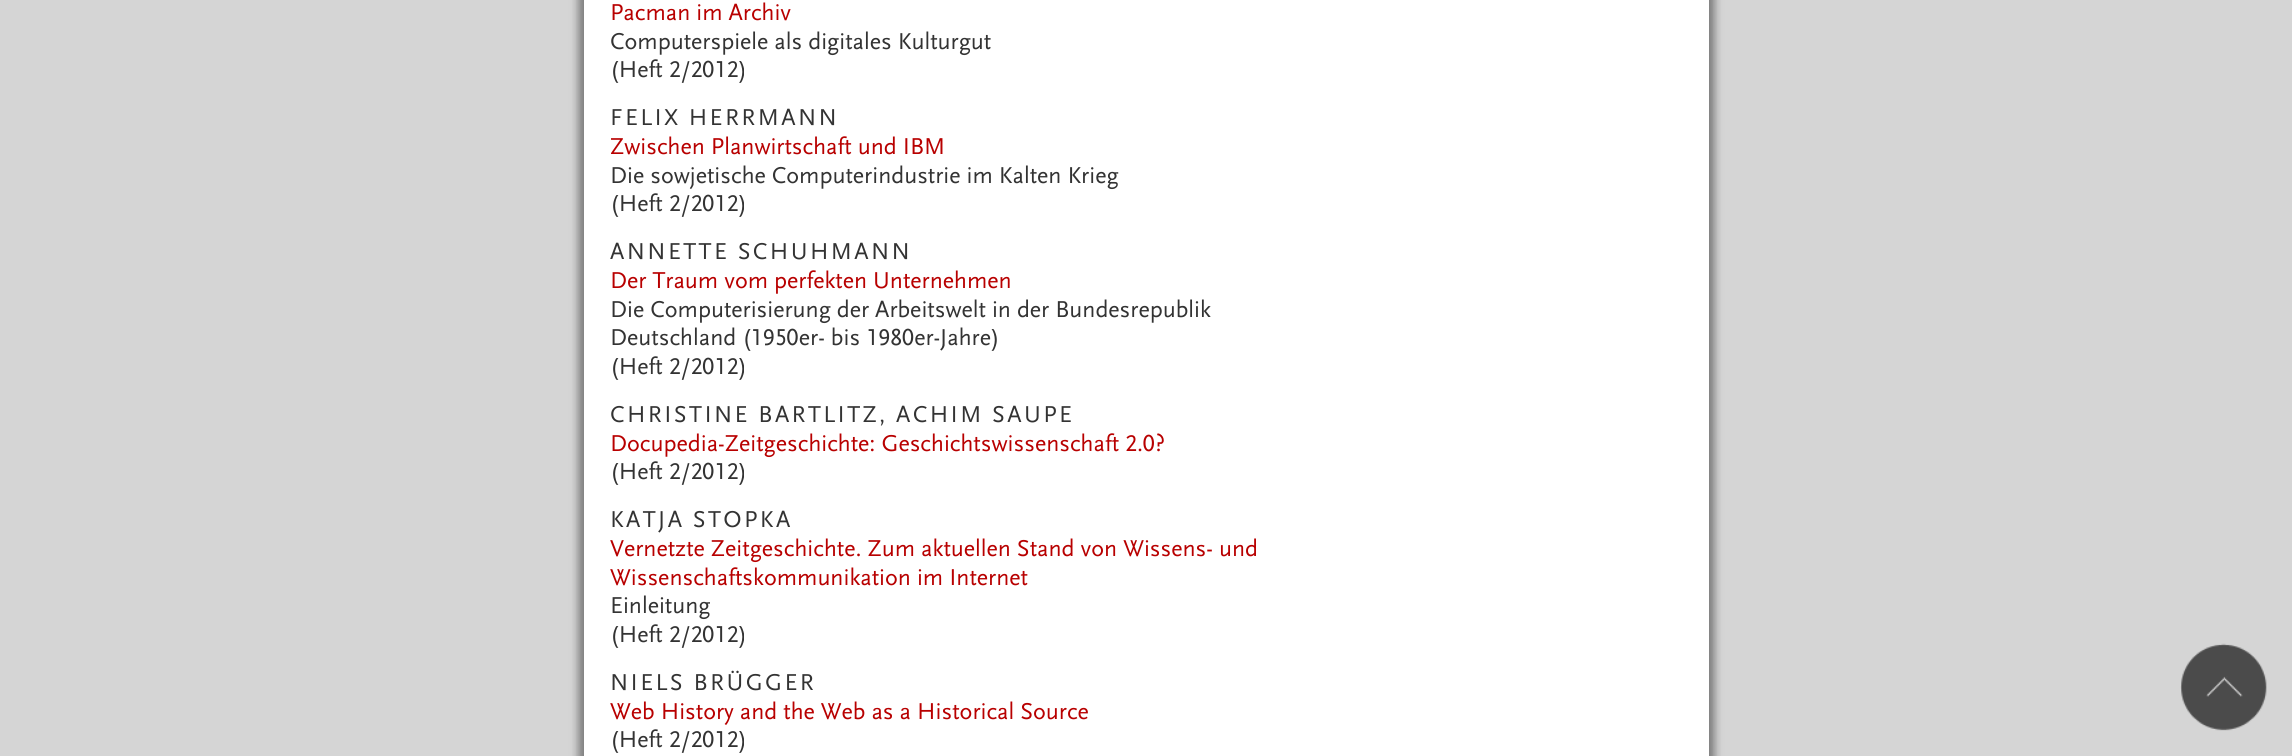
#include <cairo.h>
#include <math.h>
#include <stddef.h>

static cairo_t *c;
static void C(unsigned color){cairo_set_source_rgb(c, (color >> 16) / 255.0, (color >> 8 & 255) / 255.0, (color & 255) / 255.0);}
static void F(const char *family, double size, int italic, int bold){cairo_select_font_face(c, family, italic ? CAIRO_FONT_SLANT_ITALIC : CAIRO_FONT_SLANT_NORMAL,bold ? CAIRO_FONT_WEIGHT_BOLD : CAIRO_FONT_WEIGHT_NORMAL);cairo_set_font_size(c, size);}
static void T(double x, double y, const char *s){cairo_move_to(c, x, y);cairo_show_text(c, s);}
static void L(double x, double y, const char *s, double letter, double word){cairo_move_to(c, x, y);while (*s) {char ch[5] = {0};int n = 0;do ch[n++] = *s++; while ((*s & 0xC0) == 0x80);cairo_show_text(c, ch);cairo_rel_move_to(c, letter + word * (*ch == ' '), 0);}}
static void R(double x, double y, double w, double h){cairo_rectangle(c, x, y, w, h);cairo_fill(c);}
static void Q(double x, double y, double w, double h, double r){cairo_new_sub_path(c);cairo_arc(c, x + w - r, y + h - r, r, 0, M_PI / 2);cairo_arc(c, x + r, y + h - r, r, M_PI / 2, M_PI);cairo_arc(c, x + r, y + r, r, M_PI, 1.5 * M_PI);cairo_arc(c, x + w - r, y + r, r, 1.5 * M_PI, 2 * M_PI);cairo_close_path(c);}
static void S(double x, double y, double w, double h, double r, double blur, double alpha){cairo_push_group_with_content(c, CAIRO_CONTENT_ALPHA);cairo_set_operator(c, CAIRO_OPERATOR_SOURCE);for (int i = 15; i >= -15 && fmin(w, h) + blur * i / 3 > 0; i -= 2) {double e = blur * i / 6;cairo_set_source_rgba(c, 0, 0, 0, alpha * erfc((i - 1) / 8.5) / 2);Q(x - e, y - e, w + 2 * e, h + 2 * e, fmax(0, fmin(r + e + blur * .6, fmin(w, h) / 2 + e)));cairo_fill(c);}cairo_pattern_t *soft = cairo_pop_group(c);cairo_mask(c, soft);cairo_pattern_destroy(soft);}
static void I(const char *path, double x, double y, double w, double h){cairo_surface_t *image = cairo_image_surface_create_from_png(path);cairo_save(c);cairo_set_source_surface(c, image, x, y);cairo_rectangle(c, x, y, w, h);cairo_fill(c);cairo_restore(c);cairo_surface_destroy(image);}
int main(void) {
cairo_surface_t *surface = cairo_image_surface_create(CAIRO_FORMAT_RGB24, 2292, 756);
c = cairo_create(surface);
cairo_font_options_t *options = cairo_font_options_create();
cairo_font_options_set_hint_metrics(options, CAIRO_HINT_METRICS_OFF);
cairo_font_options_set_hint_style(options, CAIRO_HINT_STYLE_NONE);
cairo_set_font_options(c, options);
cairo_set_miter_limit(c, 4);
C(0xd5d5d5);
cairo_paint(c);
C(0x000000);
S(578,-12,1125,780,0,4,.4);
S(590,-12,1125,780,0,4,.4);
C(0xffffff);
R(584,0,1125,756);
F("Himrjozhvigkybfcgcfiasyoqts",24,0,0);
C(0xb80000);
T(610,20,"Pacman im Archiv");
C(0x333333);
T(610,49,"Computerspiele als digitales Kulturgut");
T(610,77,"(Heft 2/2012)");
L(610,125,"FELIX HERRMANN",2.4,0);
C(0xb80000);
T(610,154,"Zwischen Planwirtschaft und IBM");
C(0x333333);
T(610,183,"Die sowjetische Computerindustrie im Kalten Krieg");
T(610,211,"(Heft 2/2012)");
L(610,259,"ANNETTE SCHUHMANN",2.4,0);
C(0xb80000);
T(610,288,"Der Traum vom perfekten Unternehmen");
C(0x333333);
T(610,317,"Die Computerisierung der Arbeitswelt in der Bundesrepublik");
T(610,345,"Deutschland (1950er- bis 1980er-Jahre)");
T(610,374,"(Heft 2/2012)");
L(610,422,"CHRISTINE BARTLITZ, ACHIM SAUPE",2.4,0);
C(0xb80000);
T(610,451,"Docupedia-Zeitgeschichte: Geschichtswissenschaft 2.0?");
C(0x333333);
T(610,479,"(Heft 2/2012)");
L(610,527,"KATJA STOPKA",2.4,0);
C(0xb80000);
T(610,556,"Vernetzte Zeitgeschichte. Zum aktuellen Stand von Wissens- und");
T(610,585,"Wissenschaftskommunikation im Internet");
C(0x333333);
T(610,613,"Einleitung");
T(610,642,"(Heft 2/2012)");
L(610,690,"NIELS BRÜGGER",2.4,0);
C(0xb80000);
T(610,719,"Web History and the Web as a Historical Source");
C(0x333333);
T(610,747,"(Heft 2/2012)");
I("1.png",2180,643,87,88);
cairo_surface_write_to_png(surface, "o.png");
cairo_font_options_destroy(options);
cairo_destroy(c);
cairo_surface_destroy(surface);
return 0;
}
